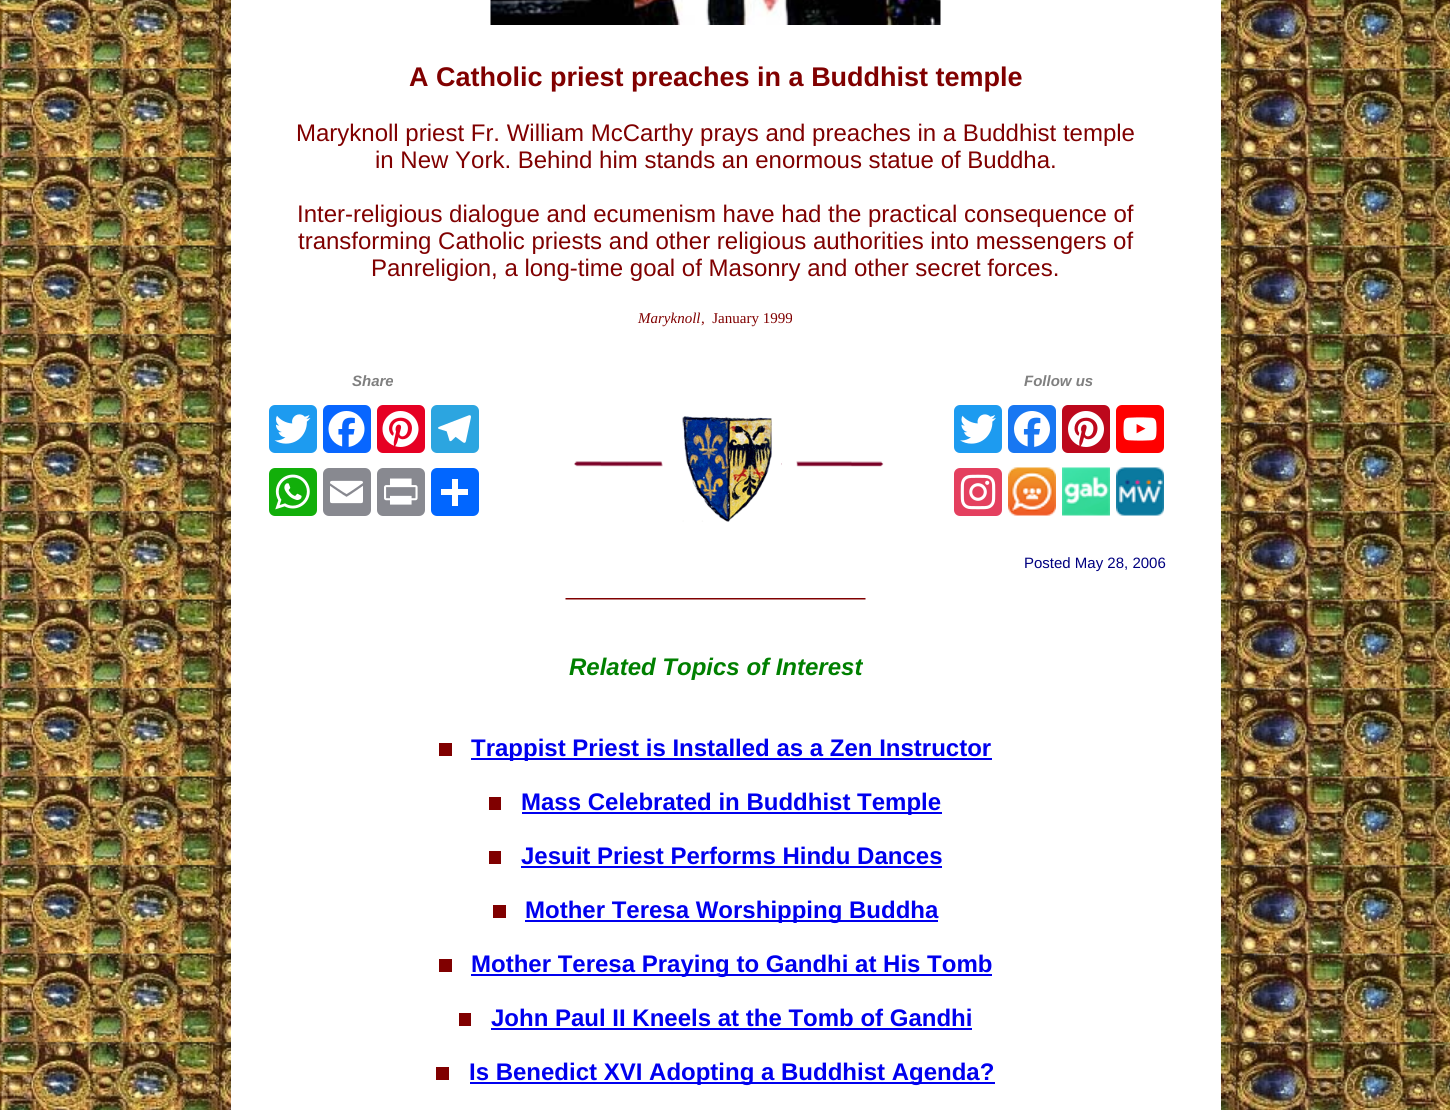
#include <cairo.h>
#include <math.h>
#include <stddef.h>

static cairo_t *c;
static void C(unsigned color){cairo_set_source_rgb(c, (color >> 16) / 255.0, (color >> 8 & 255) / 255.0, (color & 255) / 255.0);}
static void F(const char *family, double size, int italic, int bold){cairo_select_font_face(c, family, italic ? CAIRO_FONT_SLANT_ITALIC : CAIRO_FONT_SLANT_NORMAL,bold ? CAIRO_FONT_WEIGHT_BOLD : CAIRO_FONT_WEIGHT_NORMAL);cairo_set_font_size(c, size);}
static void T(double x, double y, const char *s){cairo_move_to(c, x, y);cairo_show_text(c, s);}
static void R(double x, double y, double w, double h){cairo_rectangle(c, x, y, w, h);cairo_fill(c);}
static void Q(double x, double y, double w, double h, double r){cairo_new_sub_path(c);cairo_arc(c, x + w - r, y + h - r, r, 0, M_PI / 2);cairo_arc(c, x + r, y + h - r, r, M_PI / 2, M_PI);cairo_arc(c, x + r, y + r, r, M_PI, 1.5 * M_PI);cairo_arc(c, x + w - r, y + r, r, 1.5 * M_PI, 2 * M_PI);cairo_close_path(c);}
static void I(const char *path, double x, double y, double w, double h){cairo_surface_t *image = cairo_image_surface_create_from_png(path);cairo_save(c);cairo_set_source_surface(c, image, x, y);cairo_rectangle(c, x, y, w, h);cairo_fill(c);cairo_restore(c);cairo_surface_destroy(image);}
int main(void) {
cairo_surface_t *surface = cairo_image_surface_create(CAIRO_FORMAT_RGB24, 1450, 1110);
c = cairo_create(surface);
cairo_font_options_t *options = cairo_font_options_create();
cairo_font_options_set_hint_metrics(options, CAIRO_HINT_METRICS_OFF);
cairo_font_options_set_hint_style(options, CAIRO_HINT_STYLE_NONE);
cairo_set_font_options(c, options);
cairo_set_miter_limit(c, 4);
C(0xffffff);
cairo_paint(c);
I("1.png",0,0,1450,1110);
C(0xffffff);
R(231,0,990,1110);
I("2.png",490,0,451,25);
F("Liberation Sans",27,0,1);
C(0x800000);
T(409,86,"A Catholic priest preaches in a Buddhist temple");
F("Liberation Sans",24,0,0);
T(296,141,"Maryknoll priest Fr. William McCarthy prays and preaches in a Buddhist temple");
T(375,168,"in New York. Behind him stands an enormous statue of Buddha.");
T(297,222,"Inter-religious dialogue and ecumenism have had the practical consequence of");
T(298,249,"transforming Catholic priests and other religious authorities into messengers of");
T(371,276,"Panreligion, a long-time goal of Masonry and other secret forces.");
F("Liberation Serif",15,1,0);
T(638,323,"Maryknoll");
F("Liberation Serif",15,0,0);
T(701,323,",  January 1999");
F("Liberation Sans",15,1,1);
C(0x808080);
T(352,386,"Share");
C(0x1d9bf0);
Q(269,405,48,48,6);
cairo_fill(c);
I("3.png",274,414,37,30);
C(0x0866ff);
Q(323,405,48,48,6);
cairo_fill(c);
I("4.png",328,411,37,36);
C(0xe60023);
Q(377,405,48,48,6);
cairo_fill(c);
I("5.png",382,411,37,36);
C(0x2ca5e0);
Q(431,405,48,48,6);
cairo_fill(c);
I("6.png",438,415,33,28);
C(0x12af0a);
Q(269,468,48,48,6);
cairo_fill(c);
I("7.png",275,474,35,36);
C(0x888990);
Q(323,468,48,48,6);
cairo_fill(c);
I("8.png",330,480,33,24);
Q(377,468,48,48,6);
cairo_fill(c);
I("9.png",384,478,34,27);
C(0x0166ff);
Q(431,468,48,48,6);
cairo_fill(c);
C(0xffffff);
R(452,479,6,27);
R(441,489,27,6);
C(0x808080);
T(1024,386,"Follow us");
C(0x1d9bf0);
Q(954,405,48,48,6);
cairo_fill(c);
I("10.png",960,414,36,30);
C(0x1877f2);
Q(1008,405,48,48,6);
cairo_fill(c);
I("11.png",1014,411,36,36);
C(0xbd081c);
Q(1062,405,48,48,6);
cairo_fill(c);
I("12.png",1068,411,36,36);
C(0xff0000);
Q(1116,405,48,48,6);
cairo_fill(c);
I("13.png",1123,417,34,24);
C(0xe4405f);
Q(954,468,48,48,6);
cairo_fill(c);
I("14.png",960,474,36,36);
I("15.png",1008,467,48,49);
I("16.png",1062,467,48,49);
I("17.png",1116,467,48,49);
I("18.png",574,416,310,106);
F("Liberation Sans",15,0,0);
C(0x000080);
T(1024,568,"Posted May 28, 2006");
I("19.png",565,598,301,2);
F("Liberation Sans",24,1,1);
C(0x008000);
T(569,675,"Related Topics of Interest");
C(0x0000ee);
R(471,758,521,2);
F("Liberation Sans",24,0,1);
T(471,756,"Trappist Priest is Installed as a Zen Instructor");
C(0x800000);
R(439,743,13,13);
C(0x0000ee);
R(522,812,420,2);
T(521,810,"Mass Celebrated in Buddhist Temple");
C(0x800000);
R(489,797,12,13);
C(0x0000ee);
T(521,864,"Jesuit Priest Performs Hindu Dances");
C(0x800000);
R(489,851,12,13);
C(0x0000ee);
R(521,866,421,2);
R(525,920,413,2);
T(525,918,"Mother Teresa Worshipping Buddha");
C(0x800000);
R(493,905,13,13);
C(0x0000ee);
R(471,974,521,2);
T(471,972,"Mother Teresa Praying to Gandhi at His Tomb");
C(0x800000);
R(439,959,13,13);
C(0x0000ee);
T(491,1026,"John Paul II Kneels at the Tomb of Gandhi");
C(0x800000);
R(459,1013,12,13);
C(0x0000ee);
R(491,1028,481,2);
R(470,1082,525,2);
T(469,1080,"Is Benedict XVI Adopting a Buddhist Agenda?");
C(0x800000);
R(436,1067,13,13);
cairo_surface_write_to_png(surface, "o.png");
cairo_font_options_destroy(options);
cairo_destroy(c);
cairo_surface_destroy(surface);
return 0;
}
